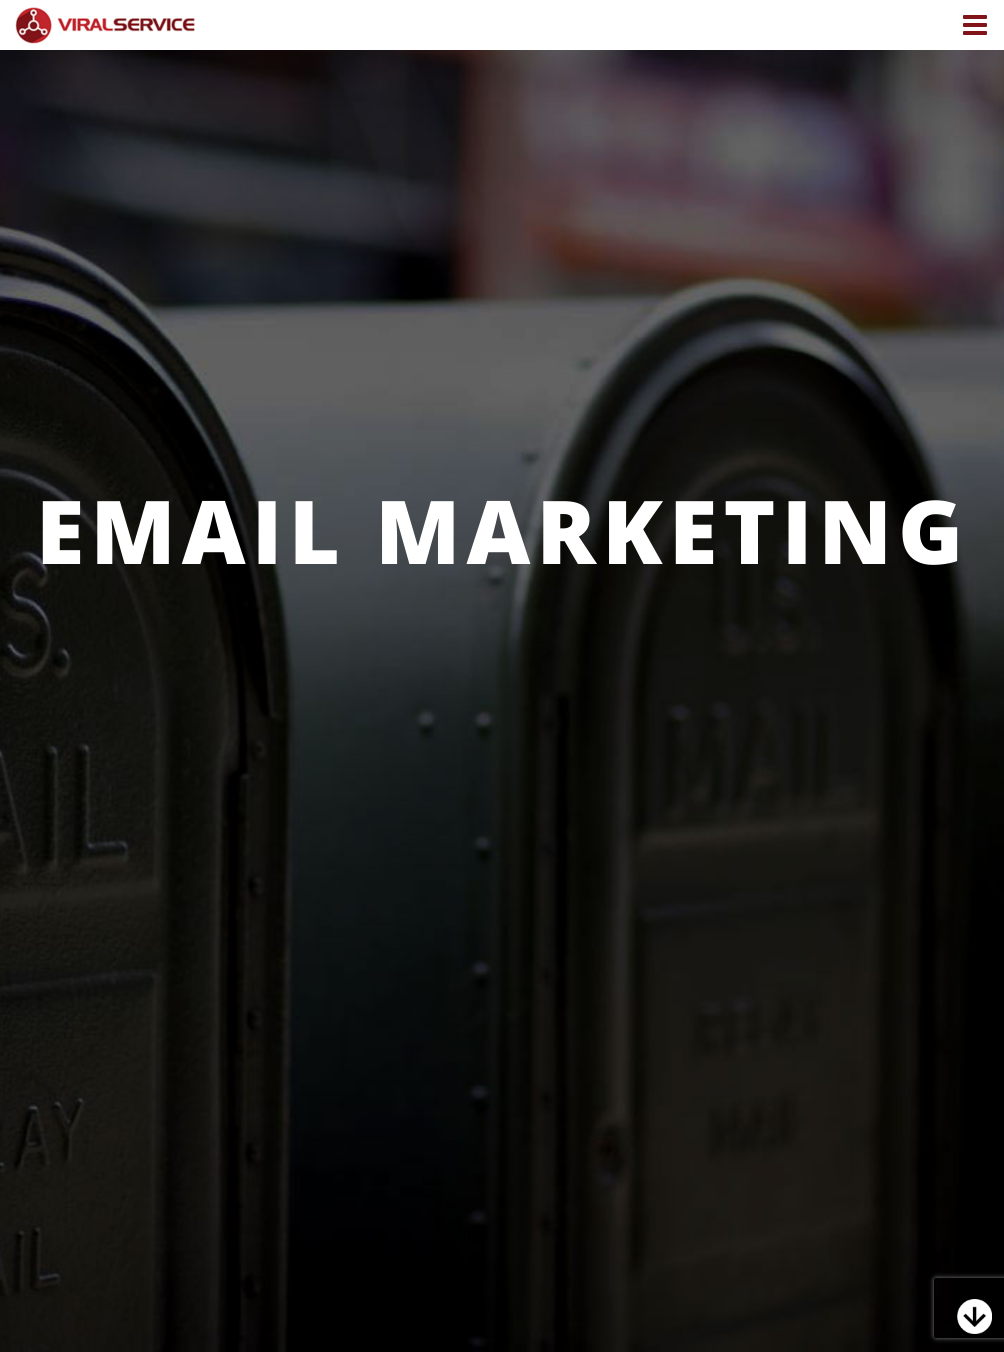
#include <cairo.h>
#include <math.h>
#include <stddef.h>

static cairo_t *c;
static void C(unsigned color){cairo_set_source_rgb(c, (color >> 16) / 255.0, (color >> 8 & 255) / 255.0, (color & 255) / 255.0);}
static void F(const char *family, double size, int italic, int bold){cairo_select_font_face(c, family, italic ? CAIRO_FONT_SLANT_ITALIC : CAIRO_FONT_SLANT_NORMAL,bold ? CAIRO_FONT_WEIGHT_BOLD : CAIRO_FONT_WEIGHT_NORMAL);cairo_set_font_size(c, size);}
static void L(double x, double y, const char *s, double letter, double word){cairo_move_to(c, x, y);while (*s) {char ch[5] = {0};int n = 0;do ch[n++] = *s++; while ((*s & 0xC0) == 0x80);cairo_show_text(c, ch);cairo_rel_move_to(c, letter + word * (*ch == ' '), 0);}}
static void Q(double x, double y, double w, double h, double r){cairo_new_sub_path(c);cairo_arc(c, x + w - r, y + h - r, r, 0, M_PI / 2);cairo_arc(c, x + r, y + h - r, r, M_PI / 2, M_PI);cairo_arc(c, x + r, y + r, r, M_PI, 1.5 * M_PI);cairo_arc(c, x + w - r, y + r, r, 1.5 * M_PI, 2 * M_PI);cairo_close_path(c);}
static void S(double x, double y, double w, double h, double r, double blur, double alpha){cairo_push_group_with_content(c, CAIRO_CONTENT_ALPHA);cairo_set_operator(c, CAIRO_OPERATOR_SOURCE);for (int i = 15; i >= -15 && fmin(w, h) + blur * i / 3 > 0; i -= 2) {double e = blur * i / 6;cairo_set_source_rgba(c, 0, 0, 0, alpha * erfc((i - 1) / 8.5) / 2);Q(x - e, y - e, w + 2 * e, h + 2 * e, fmax(0, fmin(r + e + blur * .6, fmin(w, h) / 2 + e)));cairo_fill(c);}cairo_pattern_t *soft = cairo_pop_group(c);cairo_mask(c, soft);cairo_pattern_destroy(soft);}
static void I(const char *path, double x, double y, double w, double h){cairo_surface_t *image = cairo_image_surface_create_from_png(path);cairo_save(c);cairo_set_source_surface(c, image, x, y);cairo_rectangle(c, x, y, w, h);cairo_fill(c);cairo_restore(c);cairo_surface_destroy(image);}
int main(void) {
cairo_surface_t *surface = cairo_image_surface_create(CAIRO_FORMAT_RGB24, 1004, 1352);
c = cairo_create(surface);
cairo_font_options_t *options = cairo_font_options_create();
cairo_font_options_set_hint_metrics(options, CAIRO_HINT_METRICS_OFF);
cairo_font_options_set_hint_style(options, CAIRO_HINT_STYLE_NONE);
cairo_set_font_options(c, options);
cairo_set_miter_limit(c, 4);
C(0xffffff);
cairo_paint(c);
I("1.png",15,7,180,37);
I("2.png",963,15,24,20);
I("3.png",0,50,1004,1302);
F("Open Sans ExtraBold",88,0,0);
C(0xffffff);
L(36,564,"EMAIL MARKETING",6.2,0);
I("4.png",957,1299,35,35);
cairo_save(c);
cairo_set_fill_rule(c,CAIRO_FILL_RULE_EVEN_ODD);
cairo_new_path(c);
cairo_move_to(c,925,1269);
cairo_line_to(c,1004,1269);
cairo_line_to(c,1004,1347);
cairo_line_to(c,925,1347);
cairo_close_path(c);
cairo_move_to(c,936,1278);
cairo_line_to(c,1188,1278);
cairo_curve_to(c,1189,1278,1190,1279,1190,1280);
cairo_line_to(c,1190,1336);
cairo_curve_to(c,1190,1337,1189,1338,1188,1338);
cairo_line_to(c,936,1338);
cairo_curve_to(c,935,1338,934,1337,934,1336);
cairo_line_to(c,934,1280);
cairo_curve_to(c,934,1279,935,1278,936,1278);
cairo_close_path(c);
cairo_clip(c);
C(0x808080);
S(934,1278,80,60,2,2.5,1);
cairo_restore(c);
cairo_surface_write_to_png(surface, "o.png");
cairo_font_options_destroy(options);
cairo_destroy(c);
cairo_surface_destroy(surface);
return 0;
}
